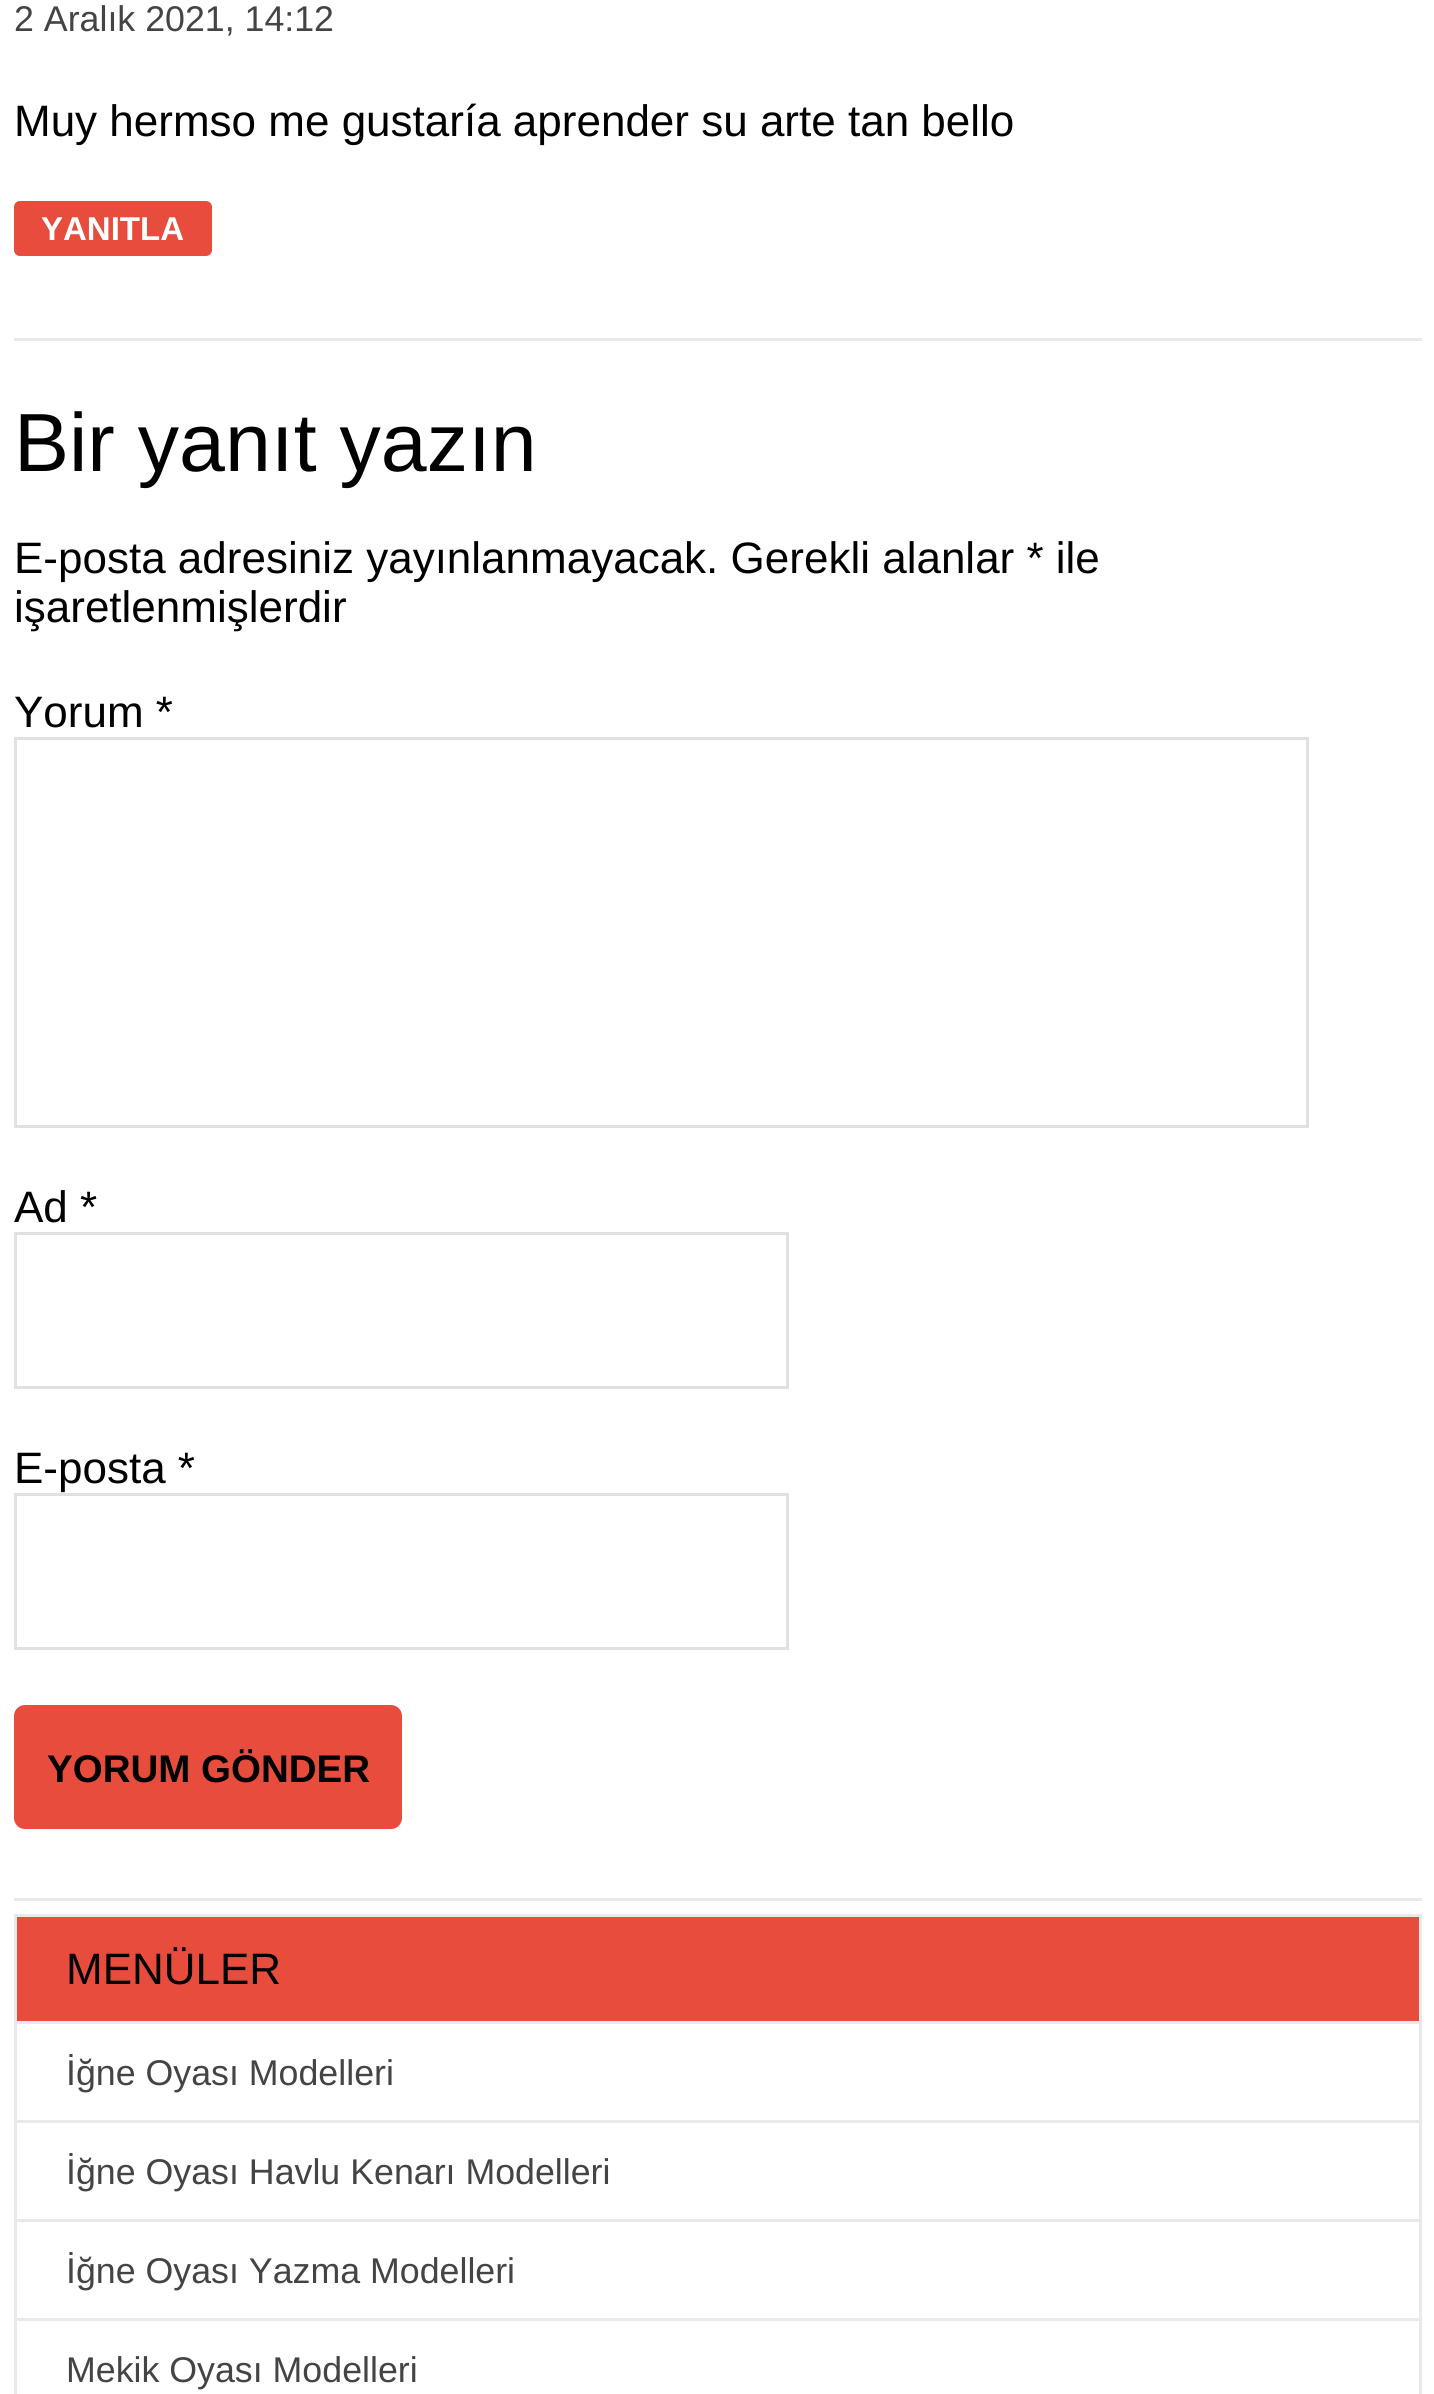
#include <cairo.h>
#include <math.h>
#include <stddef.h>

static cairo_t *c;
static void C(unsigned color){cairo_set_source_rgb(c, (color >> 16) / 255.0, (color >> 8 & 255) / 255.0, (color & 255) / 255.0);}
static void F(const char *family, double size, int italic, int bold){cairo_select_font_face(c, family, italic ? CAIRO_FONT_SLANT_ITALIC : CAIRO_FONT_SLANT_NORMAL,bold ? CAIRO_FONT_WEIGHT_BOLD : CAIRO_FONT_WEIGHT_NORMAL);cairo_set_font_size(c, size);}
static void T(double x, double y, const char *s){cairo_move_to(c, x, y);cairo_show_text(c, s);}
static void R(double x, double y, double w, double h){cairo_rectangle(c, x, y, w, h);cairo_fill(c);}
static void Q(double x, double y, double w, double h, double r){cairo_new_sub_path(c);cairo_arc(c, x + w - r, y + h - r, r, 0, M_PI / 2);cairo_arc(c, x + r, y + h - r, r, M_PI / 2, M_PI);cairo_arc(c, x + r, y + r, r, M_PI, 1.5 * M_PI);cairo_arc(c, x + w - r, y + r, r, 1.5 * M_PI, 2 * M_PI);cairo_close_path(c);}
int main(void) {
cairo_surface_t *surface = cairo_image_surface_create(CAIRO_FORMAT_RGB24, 1434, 2394);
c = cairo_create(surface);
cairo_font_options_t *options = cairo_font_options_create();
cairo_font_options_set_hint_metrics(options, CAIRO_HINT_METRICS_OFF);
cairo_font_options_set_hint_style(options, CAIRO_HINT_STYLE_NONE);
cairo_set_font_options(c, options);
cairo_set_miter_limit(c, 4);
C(0xffffff);
cairo_paint(c);
C(0xe9e9e9);
R(14,338,1408,3);
F("Liberation Sans",35.75,0,0);
C(0x444444);
T(14,31,"2 Aralık 2021, 14:12");
F("Liberation Sans",44,0,0);
C(0x000000);
T(14,136,"Muy hermso me gustaría aprender su arte tan bello");
C(0xe74c3c);
Q(14,201,198,55,6);
cairo_fill(c);
F("Liberation Sans",33,0,1);
C(0xffffff);
T(41,240,"YANITLA");
C(0xe9e9e9);
R(14,1898,1408,3);
F("Liberation Sans",82.5,0,0);
C(0x000000);
T(14,471,"Bir yanıt yazın");
F("Liberation Sans",44,0,0);
T(14,573,"E-posta adresiniz yayınlanmayacak. Gerekli alanlar * ile");
T(14,622,"işaretlenmişlerdir");
T(14,727,"Yorum *");
cairo_rectangle(c,15.5,738.5,1292,388);
C(0xe1e1e1);
cairo_set_line_width(c,3);
cairo_stroke(c);
C(0x000000);
T(14,1222,"Ad *");
cairo_rectangle(c,15.5,1233.5,772,154);
C(0xe1e1e1);
cairo_stroke(c);
C(0x000000);
T(14,1483,"E-posta *");
cairo_rectangle(c,15.5,1494.5,772,154);
C(0xe1e1e1);
cairo_stroke(c);
C(0xe74c3c);
Q(14,1705,388,124,11);
cairo_fill(c);
F("Liberation Sans",38.5,0,1);
C(0x000000);
T(47,1782,"YORUM GÖNDER");
cairo_rectangle(c,15.5,1915.5,1405,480);
C(0xe9e9e9);
cairo_stroke(c);
C(0xe74c3c);
R(17,1917,1402,104);
F("Liberation Sans",44,0,0);
C(0x000000);
T(66,1984,"MENÜLER");
C(0xe9e9e9);
R(17,2021,1402,3);
F("Liberation Sans",35.75,0,0);
C(0x444444);
T(66,2085,"İğne Oyası Modelleri");
C(0xe9e9e9);
R(17,2120,1402,3);
C(0x444444);
T(66,2184,"İğne Oyası Havlu Kenarı Modelleri");
C(0xe9e9e9);
R(17,2219,1402,3);
C(0x444444);
T(66,2283,"İğne Oyası Yazma Modelleri");
C(0xe9e9e9);
R(17,2318,1402,3);
C(0x444444);
T(66,2382,"Mekik Oyası Modelleri");
cairo_surface_write_to_png(surface, "o.png");
cairo_font_options_destroy(options);
cairo_destroy(c);
cairo_surface_destroy(surface);
return 0;
}
